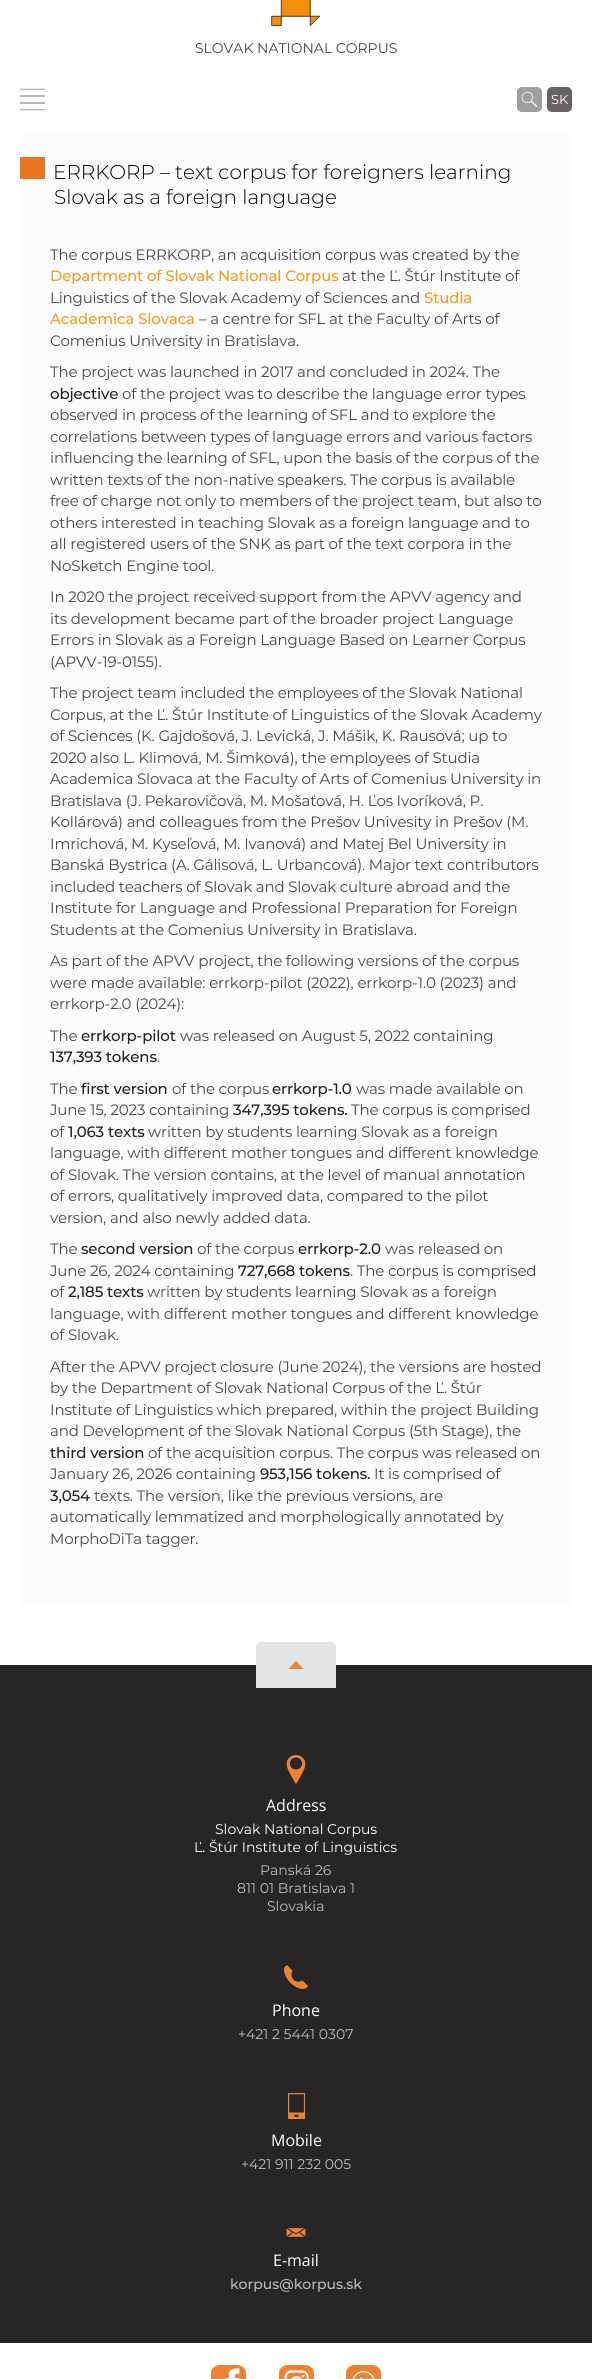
#include <cairo.h>
#include <math.h>
#include <stddef.h>

static cairo_t *c;
static void C(unsigned color){cairo_set_source_rgb(c, (color >> 16) / 255.0, (color >> 8 & 255) / 255.0, (color & 255) / 255.0);}
static void F(const char *family, double size, int italic, int bold){cairo_select_font_face(c, family, italic ? CAIRO_FONT_SLANT_ITALIC : CAIRO_FONT_SLANT_NORMAL,bold ? CAIRO_FONT_WEIGHT_BOLD : CAIRO_FONT_WEIGHT_NORMAL);cairo_set_font_size(c, size);}
static void T(double x, double y, const char *s){cairo_move_to(c, x, y);cairo_show_text(c, s);}
static void L(double x, double y, const char *s, double letter, double word){cairo_move_to(c, x, y);while (*s) {char ch[5] = {0};int n = 0;do ch[n++] = *s++; while ((*s & 0xC0) == 0x80);cairo_show_text(c, ch);cairo_rel_move_to(c, letter + word * (*ch == ' '), 0);}}
static void R(double x, double y, double w, double h){cairo_rectangle(c, x, y, w, h);cairo_fill(c);}
static void Q(double x, double y, double w, double h, double r){cairo_new_sub_path(c);cairo_arc(c, x + w - r, y + h - r, r, 0, M_PI / 2);cairo_arc(c, x + r, y + h - r, r, M_PI / 2, M_PI);cairo_arc(c, x + r, y + r, r, M_PI, 1.5 * M_PI);cairo_arc(c, x + w - r, y + r, r, 1.5 * M_PI, 2 * M_PI);cairo_close_path(c);}
static void I(const char *path, double x, double y, double w, double h){cairo_surface_t *image = cairo_image_surface_create_from_png(path);cairo_save(c);cairo_set_source_surface(c, image, x, y);cairo_rectangle(c, x, y, w, h);cairo_fill(c);cairo_restore(c);cairo_surface_destroy(image);}
int main(void) {
cairo_surface_t *surface = cairo_image_surface_create(CAIRO_FORMAT_RGB24, 592, 2379);
c = cairo_create(surface);
cairo_font_options_t *options = cairo_font_options_create();
cairo_font_options_set_hint_metrics(options, CAIRO_HINT_METRICS_OFF);
cairo_font_options_set_hint_style(options, CAIRO_HINT_STYLE_NONE);
cairo_set_font_options(c, options);
cairo_set_miter_limit(c, 4);
C(0xffffff);
cairo_paint(c);
I("1.png",271,0,49,27);
F("Montserrat",14,0,0);
C(0x494748);
T(195,53,"SLOVAK NATIONAL CORPUS");
I("2.png",20,88,25,23);
C(0xa09e9e);
Q(517,87,25,25,5);
cairo_fill(c);
I("3.png",521,91,17,17);
C(0x676363);
Q(547,87,25,25,5);
cairo_fill(c);
F("Montserrat",13,0,0);
C(0xffffff);
T(551,104,"SK");
C(0xfcfcfc);
R(20,132,552,1473);
C(0xea7621);
R(20,157,25,22);
F("Montserrat Light",20,0,0);
C(0x000000);
T(53,179,"ERRKORP – text corpus for foreigners learning");
T(54,204,"Slovak as a foreign language");
F("Montserrat",15,0,0);
C(0x494748);
L(50,260,"The corpus ERRKORP, an acquisition corpus was created by the",-.15,0);
F("Montserrat Medium",15,0,0);
C(0xf49b1e);
L(50,281,"Department of Slovak National Corpus",-.15,0);
F("Montserrat",15,0,0);
C(0x494748);
L(342,281,"at the Ľ. Štúr Institute of",-.15,0);
L(50,303,"Linguistics of the Slovak Academy of Sciences and",-.15,0);
F("Montserrat Medium",15,0,0);
C(0xf49b1e);
L(424,303,"Studia",-.15,0);
L(50,324,"Academica Slovaca",-.15,0);
F("Montserrat",15,0,0);
C(0x494748);
L(199,324,"– a centre for SFL at the Faculty of Arts of",-.15,0);
L(50,346,"Comenius University in Bratislava.",-.15,0);
L(50,377,"The project was launched in 2017 and concluded in 2024. The",-.15,0);
F("Montserrat Medium",15,0,0);
C(0x212021);
L(50,399,"objective",-.15,0);
F("Montserrat",15,0,0);
C(0x494748);
L(122,399,"of the project was to describe the language error types",-.15,0);
L(50,420,"observed in process of the learning of SFL and to explore the",-.15,0);
L(50,442,"correlations between types of language errors and various factors",-.15,0);
L(50,463,"influencing the learning of SFL, upon the basis of the corpus of the",-.15,0);
L(50,485,"written texts of the non-native speakers. The corpus is available",-.15,0);
L(50,506,"free of charge not only to members of the project team, but also to",-.15,0);
L(50,528,"others interested in teaching Slovak as a foreign language and to",-.15,0);
L(50,549,"all registered users of the SNK as part of the text corpora in the",-.15,0);
L(50,571,"NoSketch Engine tool.",-.15,0);
L(50,602,"In 2020 the project received support from the APVV agency and",-.15,0);
L(50,624,"its development became part of the broader project Language",-.15,0);
L(50,645,"Errors in Slovak as a Foreign Language Based on Learner Corpus",-.15,0);
L(50,667,"(APVV-19-0155).",-.15,0);
L(50,698,"The project team included the employees of the Slovak National",-.15,0);
L(50,720,"Corpus, at the Ľ. Štúr Institute of Linguistics of the Slovak Academy",-.15,0);
L(50,741,"of Sciences (K. Gajdošová, J. Levická, J. Mášik, K. Rausová; up to",-.15,0);
L(50,763,"2020 also L. Klimová, M. Šimková), the employees of Studia",-.15,0);
L(50,784,"Academica Slovaca at the Faculty of Arts of Comenius University in",-.15,0);
L(50,806,"Bratislava (J. Pekarovičová, M. Mošaťová, H. Ľos Ivoríková, P.",-.15,0);
L(50,827,"Kollárová) and colleagues from the Prešov Univesity in Prešov (M.",-.15,0);
L(50,849,"Imrichová, M. Kyseľová, M. Ivanová) and Matej Bel University in",-.15,0);
L(50,870,"Banská Bystrica (A. Gálisová, L. Urbancová). Major text contributors",-.15,0);
L(50,892,"included teachers of Slovak and Slovak culture abroad and the",-.15,0);
L(50,913,"Institute for Language and Professional Preparation for Foreign",-.15,0);
L(50,935,"Students at the Comenius University in Bratislava.",-.15,0);
L(50,966,"As part of the APVV project, the following versions of the corpus",-.15,0);
L(50,988,"were made available: errkorp-pilot (2022), errkorp-1.0 (2023) and",-.15,0);
L(50,1009,"errkorp-2.0 (2024):",-.15,0);
L(50,1041,"The",-.15,0);
F("Montserrat Medium",15,0,0);
C(0x212021);
L(81,1041,"errkorp-pilot",-.15,0);
F("Montserrat",15,0,0);
C(0x494748);
L(180,1041,"was released on August 5, 2022 containing",-.15,0);
F("Montserrat Medium",15,0,0);
C(0x212021);
L(50,1062,"137,393 tokens",-.15,0);
F("Montserrat",15,0,0);
C(0x494748);
L(157,1062,".",-.15,0);
L(50,1094,"The",-.15,0);
F("Montserrat Medium",15,0,0);
C(0x212021);
L(81,1094,"first version",-.15,0);
F("Montserrat",15,0,0);
C(0x494748);
L(172,1094,"of the corpus",-.15,0);
F("Montserrat Medium",15,0,0);
C(0x212021);
L(272,1094,"errkorp-1.0",-.15,0);
F("Montserrat",15,0,0);
C(0x494748);
L(356,1094,"was made available on",-.15,0);
L(50,1115,"June 15, 2023 containing",-.15,0);
F("Montserrat Medium",15,0,0);
C(0x212021);
L(233,1115,"347,395 tokens.",-.15,0);
F("Montserrat",15,0,0);
C(0x494748);
L(351,1115,"The corpus is comprised",-.15,0);
L(50,1137,"of",-.15,0);
F("Montserrat Medium",15,0,0);
C(0x212021);
L(68,1137,"1,063 texts",-.15,0);
F("Montserrat",15,0,0);
C(0x494748);
L(148,1137,"written by students learning Slovak as a foreign",-.15,0);
L(50,1158,"language, with different mother tongues and different knowledge",-.15,0);
L(50,1180,"of Slovak. The version contains, at the level of manual annotation",-.15,0);
L(50,1201,"of errors, qualitatively improved data, compared to the pilot",-.15,0);
L(50,1223,"version, and also newly added data.",-.15,0);
L(50,1254,"The",-.15,0);
F("Montserrat Medium",15,0,0);
C(0x212021);
L(81,1254,"second version",-.15,0);
F("Montserrat",15,0,0);
C(0x494748);
L(197,1254,"of the corpus",-.15,0);
F("Montserrat Medium",15,0,0);
C(0x212021);
L(298,1254,"errkorp-2.0",-.15,0);
F("Montserrat",15,0,0);
C(0x494748);
L(385,1254,"was released on",-.15,0);
L(50,1276,"June 26, 2024 containing",-.15,0);
F("Montserrat Medium",15,0,0);
C(0x212021);
L(238,1276,"727,668 tokens",-.15,0);
F("Montserrat",15,0,0);
C(0x494748);
L(350,1276,". The corpus is comprised",-.15,0);
L(50,1297,"of",-.15,0);
F("Montserrat Medium",15,0,0);
C(0x212021);
L(68,1297,"2,185 texts",-.15,0);
F("Montserrat",15,0,0);
C(0x494748);
L(147,1297,"written by students learning Slovak as a foreign",-.15,0);
L(50,1319,"language, with different mother tongues and different knowledge",-.15,0);
L(50,1340,"of Slovak.",-.15,0);
L(50,1372,"After the APVV project closure (June 2024), the versions are hosted",-.15,0);
L(50,1393,"by the Department of Slovak National Corpus of the Ľ. Štúr",-.15,0);
L(50,1415,"Institute of Linguistics which prepared, within the project Building",-.15,0);
L(50,1436,"and Development of the Slovak National Corpus (5th Stage), the",-.15,0);
F("Montserrat Medium",15,0,0);
C(0x212021);
L(50,1458,"third version",-.15,0);
F("Montserrat",15,0,0);
C(0x494748);
L(148,1458,"of the acquisition corpus. The corpus was released on",-.15,0);
L(50,1479,"January 26, 2026 containing",-.15,0);
F("Montserrat Medium",15,0,0);
C(0x212021);
L(260,1479,"953,156 tokens.",-.15,0);
F("Montserrat",15,0,0);
C(0x494748);
L(374,1479,"It is comprised of",-.15,0);
F("Montserrat Medium",15,0,0);
C(0x212021);
L(50,1501,"3,054",-.15,0);
F("Montserrat",15,0,0);
C(0x494748);
L(94,1501,"texts. The version, like the previous versions, are",-.15,0);
L(50,1522,"automatically lemmatized and morphologically annotated by",-.15,0);
L(50,1544,"MorphoDiTa tagger.",-.15,0);
C(0x272526);
R(0,1665,592,678);
C(0xe3e4e5);
cairo_new_path(c);
cairo_move_to(c,261,1642);
cairo_line_to(c,331,1642);
cairo_curve_to(c,334,1642,336,1644,336,1647);
cairo_line_to(c,336,1688);
cairo_line_to(c,256,1688);
cairo_line_to(c,256,1647);
cairo_curve_to(c,256,1644,258,1642,261,1642);
cairo_close_path(c);
cairo_fill(c);
C(0xee822f);
cairo_new_path(c);
cairo_move_to(c,296,1661);
cairo_line_to(c,288.5,1669);
cairo_line_to(c,303.5,1669);
cairo_close_path(c);
cairo_fill(c);
I("4.png",286,1755,20,29);
F("Open Sans",16,0,0);
C(0xffffff);
T(266,1811,"Address");
F("Montserrat",14,0,0);
T(215,1834,"Slovak National Corpus");
T(194,1852,"Ľ. Štúr Institute of Linguistics");
C(0xb9bbc1);
T(260,1875,"Panská 26");
T(237,1893,"811 01 Bratislava 1");
T(267,1911,"Slovakia");
I("5.png",284,1965,24,24);
F("Open Sans",16,0,0);
C(0xffffff);
T(272,2016,"Phone");
F("Montserrat",14,0,0);
C(0xb9bbc1);
T(238,2039,"+421 2 5441 0307");
I("6.png",288,2093,17,26);
F("Open Sans",16,0,0);
C(0xffffff);
T(271,2146,"Mobile");
F("Montserrat",14,0,0);
C(0xb9bbc1);
T(241,2169,"+421 911 232 005");
I("7.png",286,2228,20,9);
F("Open Sans",16,0,0);
C(0xffffff);
T(273,2266,"E-mail");
F("Montserrat Medium",14,0,0);
C(0xb9bbc1);
T(230,2289,"korpus@korpus.sk");
I("8.png",211,2365,35,14);
I("9.png",279,2365,35,14);
I("10.png",346,2365,35,14);
cairo_surface_write_to_png(surface, "o.png");
cairo_font_options_destroy(options);
cairo_destroy(c);
cairo_surface_destroy(surface);
return 0;
}
